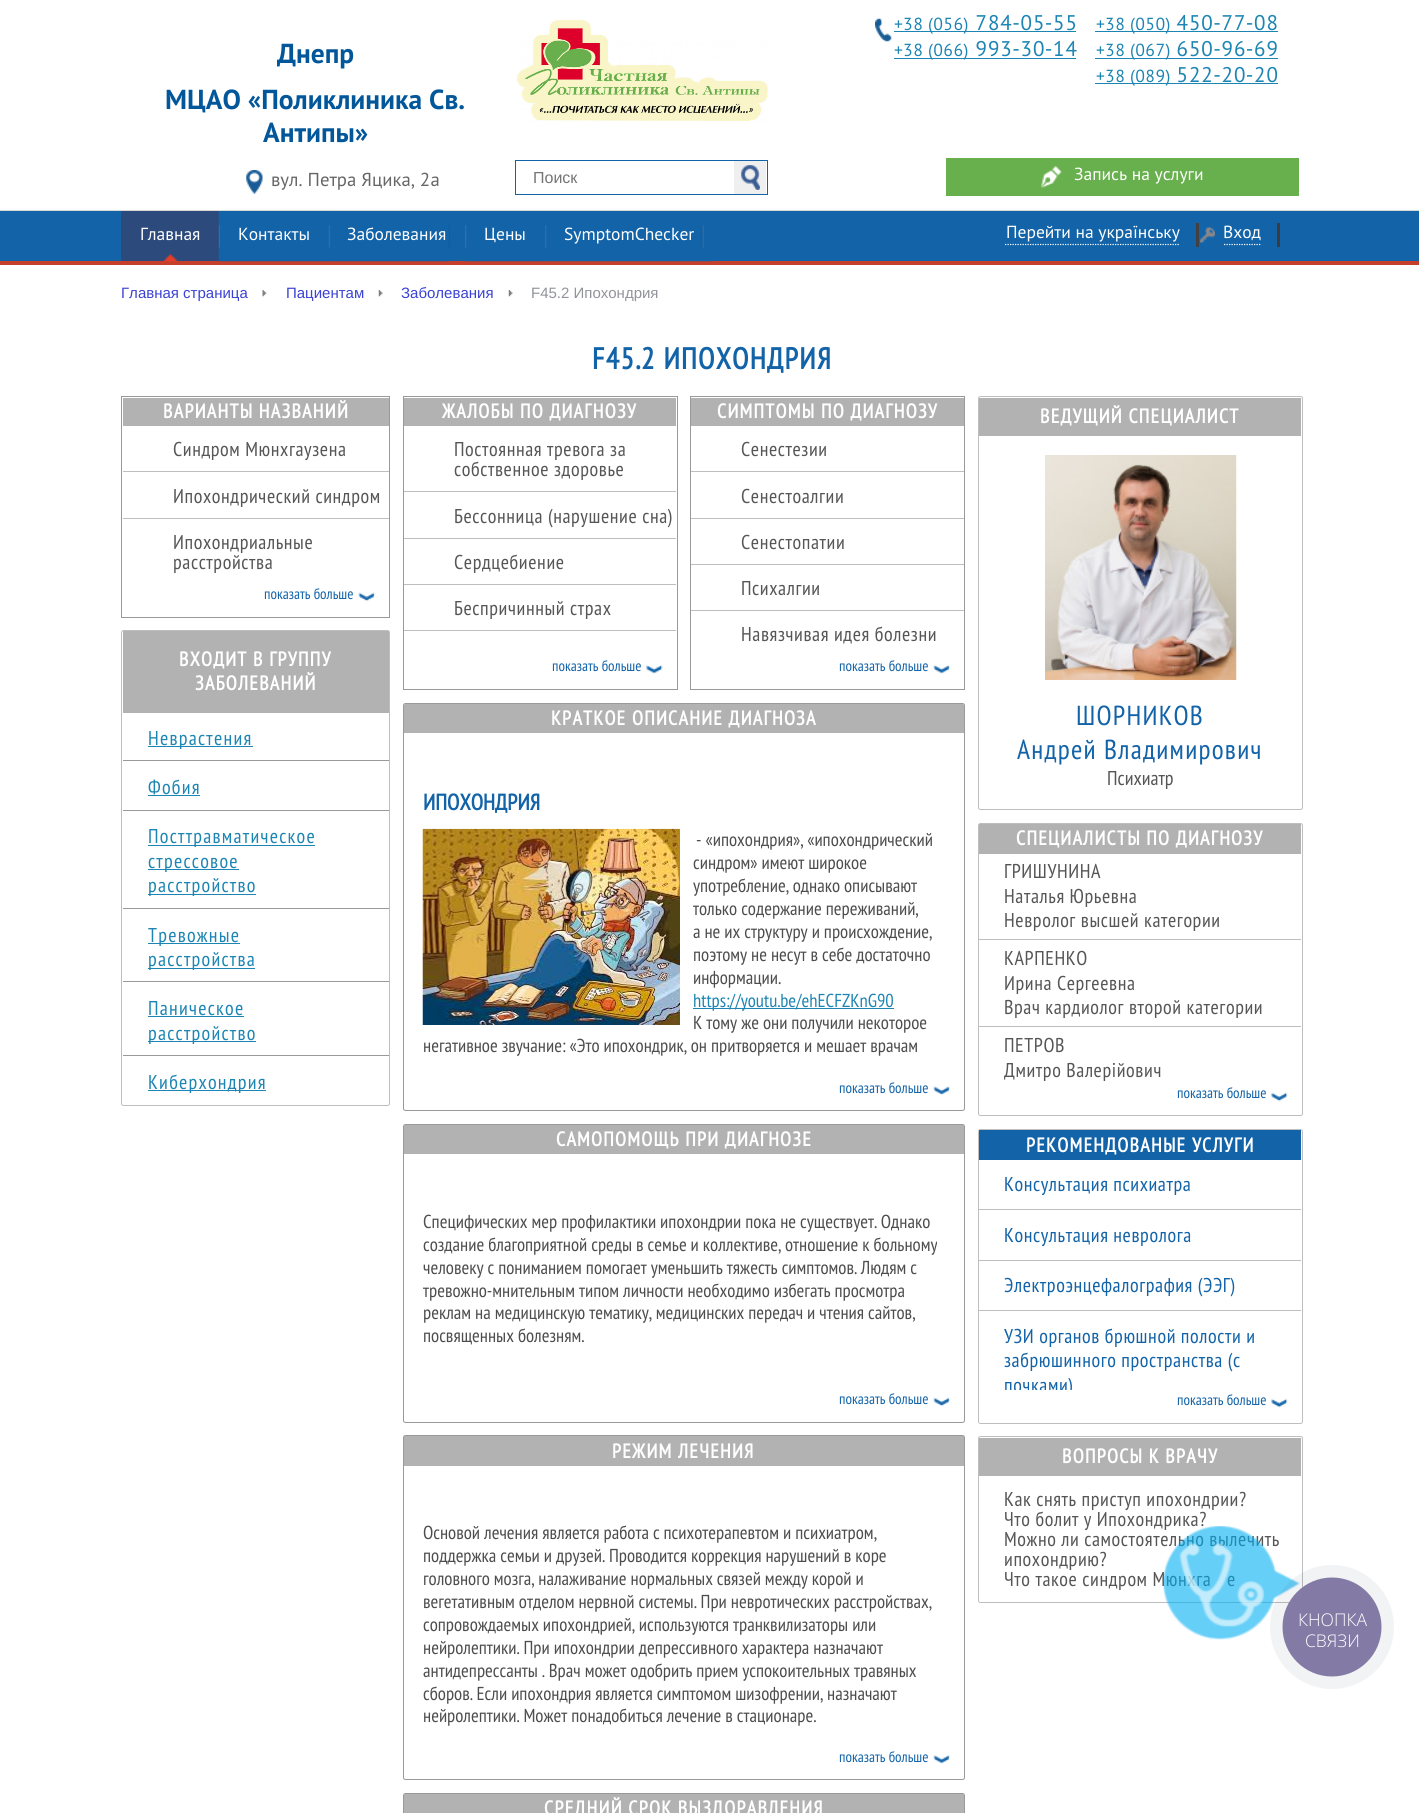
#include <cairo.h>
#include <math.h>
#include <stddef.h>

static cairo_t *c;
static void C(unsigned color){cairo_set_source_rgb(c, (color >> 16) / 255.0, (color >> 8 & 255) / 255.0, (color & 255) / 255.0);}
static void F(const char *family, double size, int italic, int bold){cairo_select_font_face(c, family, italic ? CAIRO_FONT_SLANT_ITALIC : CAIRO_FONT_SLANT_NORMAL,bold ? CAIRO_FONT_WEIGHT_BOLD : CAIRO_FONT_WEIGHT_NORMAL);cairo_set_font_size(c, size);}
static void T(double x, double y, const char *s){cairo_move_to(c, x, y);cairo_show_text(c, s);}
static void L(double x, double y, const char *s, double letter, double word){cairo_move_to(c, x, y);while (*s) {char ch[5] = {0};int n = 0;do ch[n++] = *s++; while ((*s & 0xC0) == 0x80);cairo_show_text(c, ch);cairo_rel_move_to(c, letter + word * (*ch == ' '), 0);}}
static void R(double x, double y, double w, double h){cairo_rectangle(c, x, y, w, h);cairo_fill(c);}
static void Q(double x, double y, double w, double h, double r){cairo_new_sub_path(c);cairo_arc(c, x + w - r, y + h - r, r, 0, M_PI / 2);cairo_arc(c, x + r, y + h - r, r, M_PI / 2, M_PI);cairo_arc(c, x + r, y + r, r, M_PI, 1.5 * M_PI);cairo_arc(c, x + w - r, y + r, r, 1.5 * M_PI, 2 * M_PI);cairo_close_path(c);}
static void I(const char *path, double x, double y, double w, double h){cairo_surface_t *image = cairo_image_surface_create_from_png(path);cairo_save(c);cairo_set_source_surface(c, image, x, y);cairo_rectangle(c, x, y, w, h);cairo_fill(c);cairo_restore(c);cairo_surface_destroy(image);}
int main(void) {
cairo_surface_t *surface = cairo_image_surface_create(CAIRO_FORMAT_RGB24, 1419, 1813);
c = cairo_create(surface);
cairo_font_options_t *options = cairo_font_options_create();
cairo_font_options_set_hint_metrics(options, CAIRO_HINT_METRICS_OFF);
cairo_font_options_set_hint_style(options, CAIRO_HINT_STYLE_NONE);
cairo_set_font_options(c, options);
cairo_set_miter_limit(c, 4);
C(0xffffff);
cairo_paint(c);
F("PT Sans",27.5,0,1);
C(0x02579a);
T(277,63,"Днепр");
T(165,109,"МЦАО «Поликлиника Св.");
T(263,142,"Антипы»");
I("1.png",246,170,17,24);
F("PT Sans",18.75,0,0);
C(0x666666);
T(271,186,"вул. Петра Яцика, 2а");
I("2.png",516,19,252,103);
I("3.png",875,18,17,24);
C(0x1d85b3);
R(894,31,182,1);
F("PT Sans",17.5,0,0);
T(894,30,"+38 (056)");
F("PT Sans",21.25,0,0);
T(975,30,"784-05-55");
R(894,58,182,1);
F("PT Sans",17.5,0,0);
T(894,56,"+38 (066)");
F("PT Sans",21.25,0,0);
T(975,56,"993-30-14");
R(1095,31,183,1);
F("PT Sans",17.5,0,0);
T(1096,30,"+38 (050)");
F("PT Sans",21.25,0,0);
T(1176,30,"450-77-08");
R(1095,58,183,1);
F("PT Sans",17.5,0,0);
T(1096,56,"+38 (067)");
F("PT Sans",21.25,0,0);
T(1176,56,"650-96-69");
R(1095,83,183,1);
F("PT Sans",17.5,0,0);
T(1096,82,"+38 (089)");
F("PT Sans",21.25,0,0);
T(1176,82,"522-20-20");
C(0x1263a8);
R(0,211,1419,50);
C(0xd8d8d8);
R(0,210,1419,1);
C(0xc63f2d);
R(0,261,1419,4);
cairo_rectangle(c,515.5,160.5,252,34);
C(0x1263a8);
cairo_set_line_width(c,1);
cairo_stroke(c);
F("Liberation Sans",16,0,0);
C(0x757575);
T(533,183,"Поиск");
C(0xefefef);
R(734,161,32,33);
I("4.png",741,165,19,25);
C(0x68b04d);
R(946,158,353,38);
I("5.png",1041,166,21,22);
F("PT Sans",17.5,0,0);
C(0xffffff);
T(1074,180,"Запись на услуги");
C(0x2c4b7c);
R(121,211,98,50);
I("6.png",163,253,15,9);
C(0xffffff);
T(140,240,"Главная");
I("7.png",218,211,111,51);
T(238,240,"Контакты");
I("8.png",328,225,122,37);
T(347,240,"Заболевания");
I("9.png",465,225,80,37);
T(484,240,"Цены");
I("10.png",545,225,168,37);
T(564,240,"SymptomChecker");
cairo_new_path(c);
cairo_move_to(c,1005,244.5);
cairo_line_to(c,1180,244.5);
cairo_set_line_width(c,1.2);
cairo_set_dash(c,(double[]){1.25,1.25},2,0);
cairo_stroke(c);
T(1006,238,"Перейти на українську");
C(0x404045);
R(1196,223,3,24);
I("11.png",1200,227,15,16);
cairo_new_path(c);
cairo_move_to(c,1224,244.5);
cairo_line_to(c,1261,244.5);
C(0xffffff);
cairo_stroke(c);
T(1223,238,"Вход");
C(0x3b3b40);
R(1277,223,3,24);
I("12.png",262,290,5,7);
F("Liberation Sans",15,0,0);
C(0x3a42d3);
T(121,298,"Главная страница");
I("13.png",378,290,5,7);
T(286,298,"Пациентам");
I("13.png",508,290,5,7);
T(401,298,"Заболевания");
C(0x92939b);
T(531,298,"F45.2 Ипохондрия");
F("PT Sans Narrow",30,0,1);
C(0x1263a8);
L(592,369,"F45.2 ИПОХОНДРИЯ",1.25,0);
cairo_rectangle(c,121.5,396.5,268,221);
C(0x999999);
cairo_set_line_width(c,1);
cairo_set_dash(c,NULL,0,0);
cairo_stroke(c);
C(0xb2b2b2);
R(123,398,266,28);
F("PT Sans Narrow",20,0,1);
C(0xffffff);
L(163,418,"ВАРИАНТЫ НАЗВАНИЙ",1.25,0);
C(0xbebebe);
R(123,471,266,1);
F("PT Sans Narrow",20,0,0);
C(0x565656);
L(173,456,"Синдром Мюнхгаузена",.6,0);
C(0xbebebe);
R(123,518,266,1);
C(0x565656);
L(173,503,"Ипохондрический синдром",.6,0);
L(173,549,"Ипохондриальные",.6,0);
L(173,569,"расстройства",.6,0);
F("PT Sans Narrow",15,0,0);
C(0x1263a8);
T(264,599,"показать больше");
I("14.png",358,592,17,10);
Q(121.5,630.5,268,475,2);
C(0xbebebe);
cairo_stroke(c);
C(0xb2b2b2);
R(123,631,266,82);
F("PT Sans Narrow",20,0,1);
C(0xffffff);
L(179,666,"ВХОДИТ В ГРУППУ",1.25,0);
L(195,690,"ЗАБОЛЕВАНИЙ",1.25,0);
C(0x999999);
R(123,760,266,1);
C(0x1d85b3);
R(148,746,105,1);
F("PT Sans Narrow",20,0,0);
L(148,745,"Неврастения",1.25,0);
C(0x999999);
R(123,810,266,1);
C(0x1d85b3);
L(148,794,"Фобия",1.25,0);
R(148,795,52,1);
C(0x999999);
R(123,908,266,1);
C(0x1d85b3);
R(148,845,167,1);
L(148,843,"Посттравматическое",1.25,0);
R(148,869,91,1);
L(148,868,"стрессовое",1.25,0);
R(148,894,108,1);
L(148,892,"расстройство",1.25,0);
C(0x999999);
R(123,981,266,1);
C(0x1d85b3);
R(148,943,92,1);
L(148,942,"Тревожные",1.25,0);
R(148,968,107,1);
L(148,966,"расстройства",1.25,0);
C(0x999999);
R(123,1055,266,1);
C(0x1d85b3);
L(148,1015,"Паническое",1.25,0);
R(148,1016,96,1);
R(148,1041,108,1);
L(148,1040,"расстройство",1.25,0);
R(148,1090,118,1);
L(148,1089,"Киберхондрия",1.25,0);
cairo_rectangle(c,403.5,396.5,274,293);
C(0x999999);
cairo_stroke(c);
C(0xb2b2b2);
R(404,398,272,28);
F("PT Sans Narrow",20,0,1);
C(0xffffff);
L(442,418,"ЖАЛОБЫ ПО ДИАГНОЗУ",1.25,0);
C(0xbebebe);
R(404,491,272,1);
F("PT Sans Narrow",20,0,0);
C(0x565656);
L(454,456,"Постоянная тревога за",.6,0);
L(454,476,"собственное здоровье",.6,0);
C(0xbebebe);
R(404,538,272,1);
C(0x565656);
L(454,523,"Бессонница (нарушение сна)",.6,0);
C(0xbebebe);
R(404,584,272,1);
C(0x565656);
L(454,569,"Сердцебиение",.6,0);
C(0xbebebe);
R(404,630,272,1);
C(0x565656);
L(454,615,"Беспричинный страх",.6,0);
F("PT Sans Narrow",15,0,0);
C(0x1263a8);
T(552,671,"показать больше");
I("15.png",646,665,17,9);
cairo_rectangle(c,690.5,396.5,274,293);
C(0x999999);
cairo_stroke(c);
C(0xb2b2b2);
R(691,398,273,28);
F("PT Sans Narrow",20,0,1);
C(0xffffff);
L(717,418,"СИМПТОМЫ ПО ДИАГНОЗУ",1.25,0);
C(0xbebebe);
R(691,471,273,1);
F("PT Sans Narrow",20,0,0);
C(0x565656);
L(741,456,"Сенестезии",.6,0);
C(0xbebebe);
R(691,518,273,1);
C(0x565656);
L(741,503,"Сенестоалгии",.6,0);
C(0xbebebe);
R(691,564,273,1);
C(0x565656);
L(741,549,"Сенестопатии",.6,0);
C(0xbebebe);
R(691,610,273,1);
C(0x565656);
L(741,595,"Психалгии",.6,0);
L(741,641,"Навязчивая идея болезни",.6,0);
F("PT Sans Narrow",15,0,0);
C(0x1263a8);
T(839,671,"показать больше");
I("16.png",933,665,17,9);
Q(403.5,703.5,561,407,2);
C(0x999999);
cairo_stroke(c);
C(0xb2b2b2);
R(404,704,560,29);
F("PT Sans Narrow",20,0,1);
C(0xffffff);
L(551,725,"КРАТКОЕ ОПИСАНИЕ ДИАГНОЗА",1.25,0);
F("PT Sans Narrow",22.5,0,1);
C(0x1263a8);
T(423,810,"ИПОХОНДРИЯ");
I("17.png",422,828,258,197);
F("PT Sans Narrow",18.75,0,0);
C(0x4d4d4d);
T(696,846,"- «ипохондрия», «ипохондрический");
T(693,869,"синдром» имеют широкое");
T(693,892,"употребление, однако описывают");
T(693,915,"только содержание переживаний,");
T(693,938,"а не их структуру и происхождение,");
T(693,961,"поэтому не несут в себе достаточно");
T(693,984,"информации.");
C(0x1d85b3);
R(693,1008,201,1);
T(693,1007,"https://youtu.be/ehECFZKnG90");
C(0x4d4d4d);
T(693,1029,"К тому же они получили некоторое");
T(423,1052,"негативное звучание: «Это ипохондрик, он притворяется и мешает врачам");
F("PT Sans Narrow",15,0,0);
C(0x1263a8);
T(839,1093,"показать больше");
I("18.png",933,1086,17,9);
Q(403.5,1124.5,561,298,2);
C(0x999999);
cairo_stroke(c);
C(0xb2b2b2);
R(404,1125,560,29);
F("PT Sans Narrow",20,0,1);
C(0xffffff);
L(556,1146,"САМОПОМОЩЬ ПРИ ДИАГНОЗЕ",1.25,0);
F("PT Sans Narrow",18.75,0,0);
C(0x4d4d4d);
T(423,1228,"Специфических мер профилактики ипохондрии пока не существует. Однако");
T(423,1251,"создание благоприятной среды в семье и коллективе, отношение к больному");
T(423,1274,"человеку с пониманием помогает уменьшить тяжесть симптомов. Людям с");
T(423,1297,"тревожно-мнительным типом личности необходимо избегать просмотра");
T(423,1319,"реклам на медицинскую тематику, медицинских передач и чтения сайтов,");
T(423,1342,"посвященных болезням.");
F("PT Sans Narrow",15,0,0);
C(0x1263a8);
T(839,1404,"показать больше");
I("19.png",933,1397,17,10);
Q(403.5,1435.5,561,344,2);
C(0x999999);
cairo_stroke(c);
C(0xb2b2b2);
R(404,1436,560,30);
F("PT Sans Narrow",20,0,1);
C(0xffffff);
L(612,1458,"РЕЖИМ ЛЕЧЕНИЯ",1.25,0);
F("PT Sans Narrow",18.75,0,0);
C(0x4d4d4d);
T(423,1539,"Основой лечения является работа с психотерапевтом и психиатром,");
T(423,1562,"поддержка семьи и друзей. Проводится коррекция нарушений в коре");
T(423,1585,"головного мозга, налаживание нормальных связей между корой и");
T(423,1608,"вегетативным отделом нервной системы. При невротических расстройствах,");
T(423,1631,"сопровождаемых ипохондрией, используются транквилизаторы или");
T(423,1654,"нейролептики. При ипохондрии депрессивного характера назначают");
T(423,1677,"антидепрессанты . Врач может одобрить прием успокоительных травяных");
T(423,1700,"сборов. Если ипохондрия является симптомом шизофрении, назначают");
T(423,1722,"нейролептики. Может понадобиться лечение в стационаре.");
F("PT Sans Narrow",15,0,0);
C(0x1263a8);
T(839,1762,"показать больше");
I("16.png",933,1755,17,9);
Q(403.5,1793.5,561,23,2);
C(0x999999);
cairo_stroke(c);
C(0xb2b2b2);
R(404,1794,560,19);
F("PT Sans Narrow",20,0,1);
C(0xffffff);
L(544,1815,"СРЕДНИЙ СРОК ВЫЗДОРАВЛЕНИЯ",1.25,0);
Q(978.5,396.5,324,413,2);
C(0xbebebe);
cairo_stroke(c);
C(0xb2b2b2);
R(979,398,322,38);
C(0xffffff);
L(1040,423,"ВЕДУЩИЙ СПЕЦИАЛИСТ",1.25,0);
I("20.png",1045,455,192,225);
F("PT Sans Narrow",27.5,0,0);
C(0x1263a8);
L(1076,725,"ШОРНИКОВ",1.25,0);
L(1017,759,"Андрей Владимирович",1.25,0);
F("PT Sans Narrow",20,0,0);
C(0x565656);
T(1107,785,"Психиатр");
Q(978.5,823.5,324,292,2);
C(0xbebebe);
cairo_stroke(c);
C(0xb2b2b2);
R(979,824,322,30);
F("PT Sans Narrow",20,0,1);
C(0xffffff);
L(1016,845,"СПЕЦИАЛИСТЫ ПО ДИАГНОЗУ",1.25,0);
C(0xbebebe);
R(979,939,322,1);
F("PT Sans Narrow",20,0,0);
C(0x565656);
L(1004,878,"ГРИШУНИНА",.6,0);
L(1004,903,"Наталья Юрьевна",.6,0);
L(1004,927,"Невролог высшей категории",.6,0);
C(0xbebebe);
R(979,1026,322,1);
C(0x565656);
L(1004,965,"КАРПЕНКО",.6,0);
L(1004,990,"Ирина Сергеевна",.6,0);
L(1004,1014,"Врач кардиолог второй категории",.6,0);
L(1004,1052,"ПЕТРОВ",.6,0);
L(1004,1077,"Дмитро Валерійович",.6,0);
F("PT Sans Narrow",15,0,0);
C(0x1263a8);
T(1177,1098,"показать больше");
I("21.png",1271,1092,17,10);
Q(978.5,1129.5,324,294,2);
C(0xbebebe);
cairo_stroke(c);
C(0x1263a8);
R(979,1130,322,30);
F("PT Sans Narrow",20,0,1);
C(0xffffff);
L(1026,1152,"РЕКОМЕНДОВАНЫЕ УСЛУГИ",1.25,0);
C(0xbebebe);
R(979,1209,322,1);
F("PT Sans Narrow",20,0,0);
C(0x1263a8);
L(1004,1191,"Консультация психиатра",.6,0);
C(0xbebebe);
R(979,1260,322,1);
C(0x1263a8);
L(1004,1242,"Консультация невролога",.6,0);
C(0xbebebe);
R(979,1310,322,1);
C(0x1263a8);
L(1004,1292,"Электроэнцефалография (ЭЭГ)",.6,0);
L(1004,1343,"УЗИ органов брюшной полости и",.6,0);
L(1004,1367,"забрюшинного пространства (с",.6,0);
cairo_save(c);
cairo_rectangle(c,979,1311,322,79);
cairo_clip(c);
L(1004,1392,"почками)",.6,0);
cairo_restore(c);
F("PT Sans Narrow",15,0,0);
T(1177,1405,"показать больше");
I("22.png",1271,1398,17,10);
Q(978.5,1436.5,324,166,2);
C(0xbebebe);
cairo_stroke(c);
C(0xb2b2b2);
R(979,1438,322,38);
F("PT Sans Narrow",20,0,1);
C(0xffffff);
L(1062,1463,"ВОПРОСЫ К ВРАЧУ",1.25,0);
F("PT Sans Narrow",20,0,0);
C(0x565656);
L(1004,1506,"Как снять приступ ипохондрии?",.6,0);
L(1004,1526,"Что болит у Ипохондрика?",.6,0);
L(1004,1546,"Можно ли самостоятельно вылечить",.6,0);
L(1004,1566,"ипохондрию?",.6,0);
L(1004,1586,"Что такое синдром Мюнхга",.6,0);
L(1227,1586,"е",.6,0);
I("23.png",1163,1526,137,114);
I("24.png",1179,1543,86,84);
cairo_set_source_rgba(c,0.165,0.251,0.365,0.06);
cairo_arc(c,1332,1627,62,0,2 * M_PI);
cairo_fill(c);
C(0x837ba6);
cairo_arc(c,1332,1627,49.5,0,2 * M_PI);
cairo_fill(c);
F("Open Sans Light",17.5,0,0);
C(0xffffff);
T(1298,1626,"КНОПКА");
T(1305,1647,"СВЯЗИ");
cairo_surface_write_to_png(surface, "o.png");
cairo_font_options_destroy(options);
cairo_destroy(c);
cairo_surface_destroy(surface);
return 0;
}
